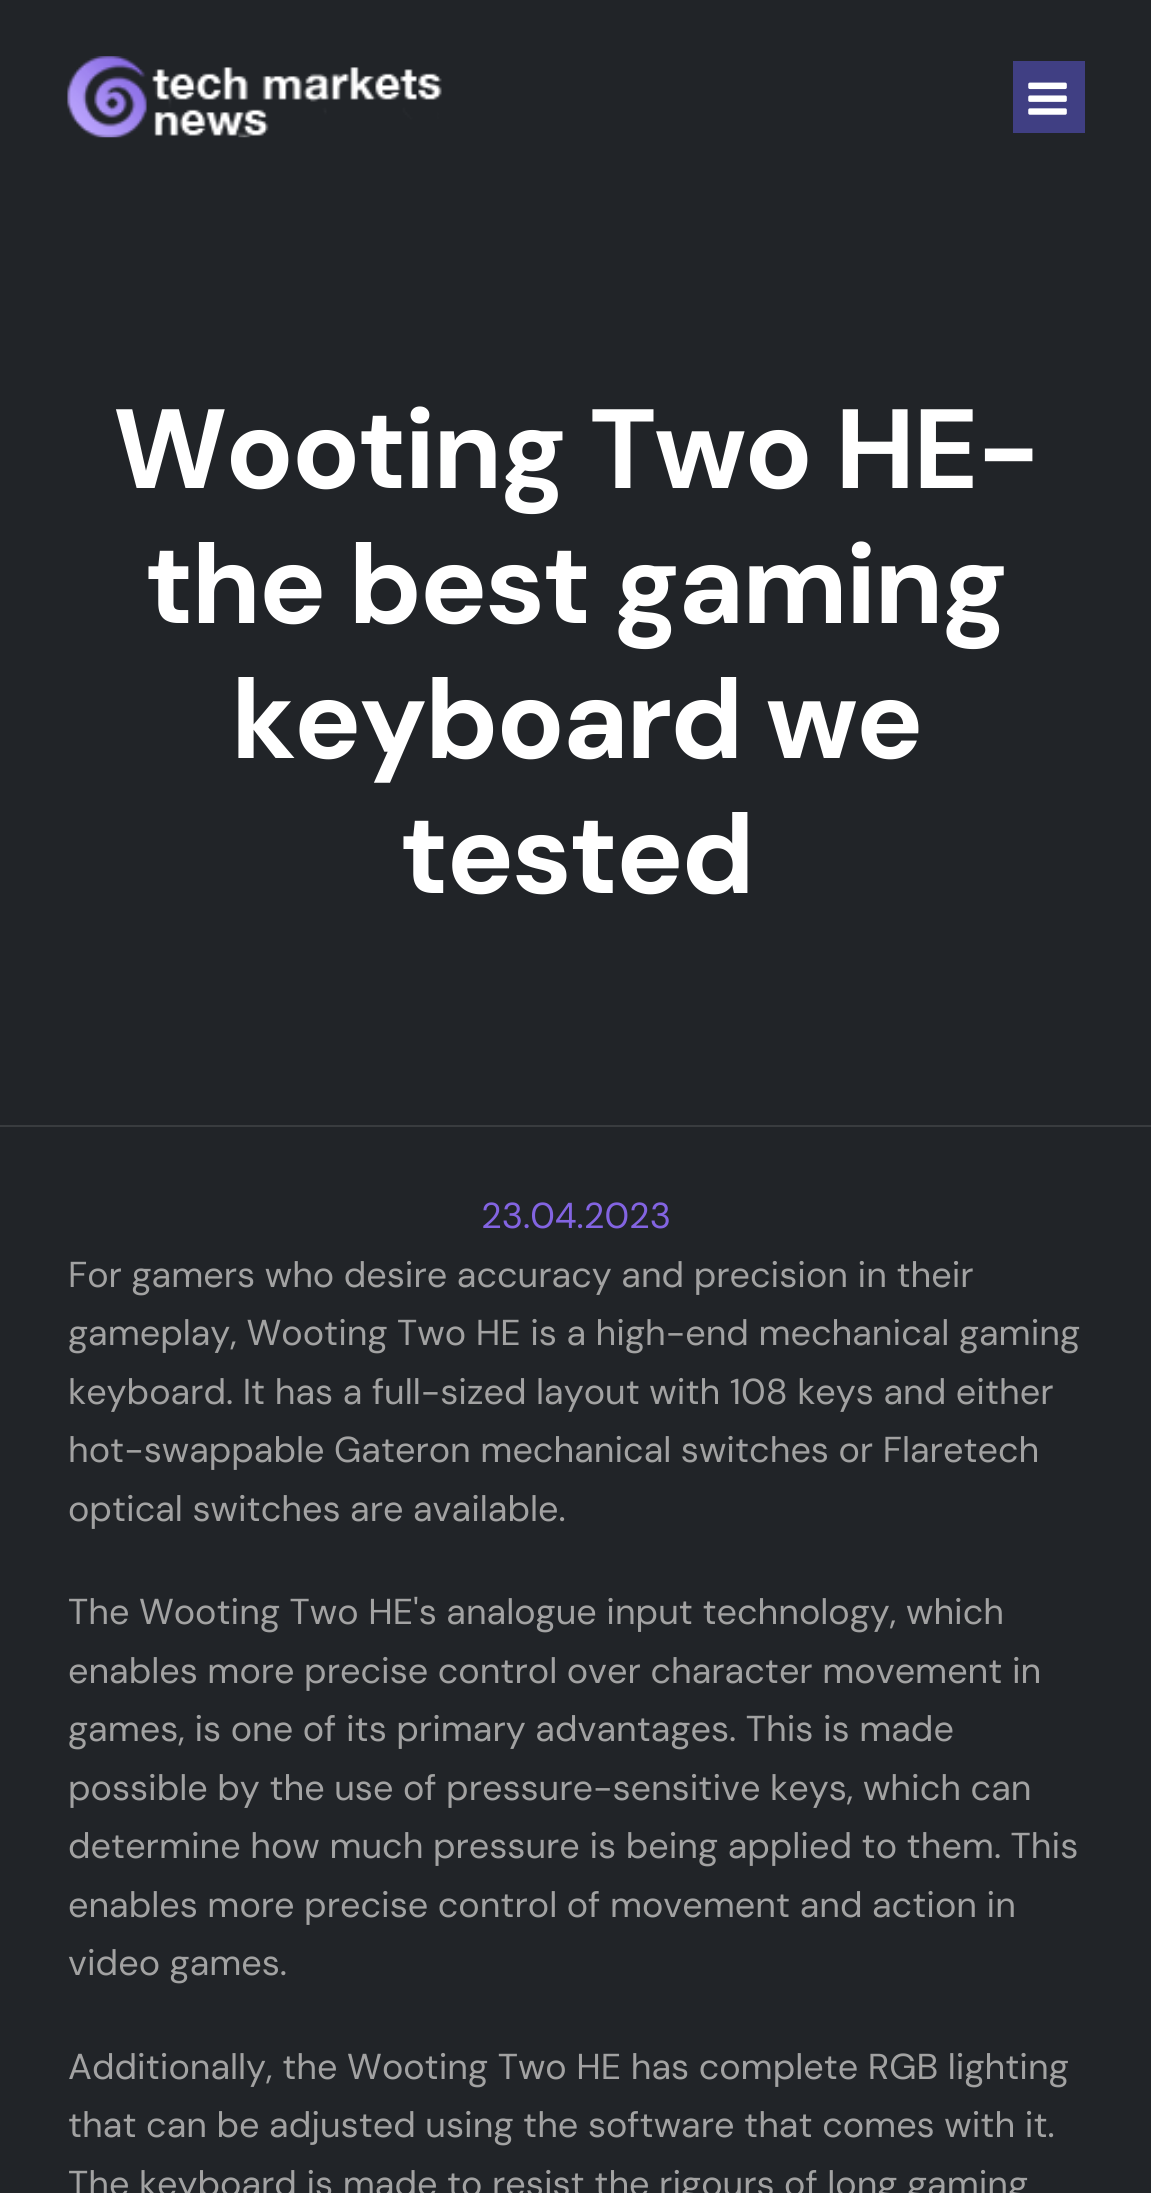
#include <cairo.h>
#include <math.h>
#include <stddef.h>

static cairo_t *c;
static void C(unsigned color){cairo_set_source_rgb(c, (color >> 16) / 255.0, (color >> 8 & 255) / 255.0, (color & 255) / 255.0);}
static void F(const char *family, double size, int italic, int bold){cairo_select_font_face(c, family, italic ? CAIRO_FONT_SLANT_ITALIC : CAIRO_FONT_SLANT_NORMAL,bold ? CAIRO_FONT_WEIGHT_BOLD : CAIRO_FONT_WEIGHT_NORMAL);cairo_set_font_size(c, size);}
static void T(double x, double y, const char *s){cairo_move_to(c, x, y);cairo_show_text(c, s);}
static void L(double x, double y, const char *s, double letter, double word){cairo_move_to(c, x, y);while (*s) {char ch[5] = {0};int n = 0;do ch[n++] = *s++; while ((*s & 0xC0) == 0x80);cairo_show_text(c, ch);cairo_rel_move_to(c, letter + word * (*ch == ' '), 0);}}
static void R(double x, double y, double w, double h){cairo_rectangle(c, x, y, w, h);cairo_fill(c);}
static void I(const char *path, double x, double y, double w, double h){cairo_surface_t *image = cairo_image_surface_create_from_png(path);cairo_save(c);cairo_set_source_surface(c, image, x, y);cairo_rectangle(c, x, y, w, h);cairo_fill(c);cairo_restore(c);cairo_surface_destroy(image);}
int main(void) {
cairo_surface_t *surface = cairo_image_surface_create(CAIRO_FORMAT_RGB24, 1151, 2193);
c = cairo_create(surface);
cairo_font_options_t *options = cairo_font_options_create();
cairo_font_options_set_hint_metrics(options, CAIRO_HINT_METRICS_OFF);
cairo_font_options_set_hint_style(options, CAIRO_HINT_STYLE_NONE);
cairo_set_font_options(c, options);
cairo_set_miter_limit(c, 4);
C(0x212428);
cairo_paint(c);
I("1.png",67,56,375,82);
C(0x403f83);
R(1013,61,72,72);
I("2.png",1028,82,39,33);
C(0x393c3f);
R(0,1125,1151,2);
F("DM Sans",112.5,0,1);
C(0xffffff);
L(113,488,"Wooting Two HE-",-2.25,0);
L(145,623,"the best gaming",-2.25,0);
L(231,758,"keyboard we",-2.25,0);
L(400,893,"tested",-2.25,0);
F("DM Sans",36,0,0);
C(0x8364e2);
T(481,1228,"23.04.2023");
C(0xa2a2a2);
T(68,1287,"For gamers who desire accuracy and precision in their");
T(68,1345,"gameplay, Wooting Two HE is a high-end mechanical gaming");
T(68,1404,"keyboard. It has a full-sized layout with 108 keys and either");
T(68,1462,"hot-swappable Gateron mechanical switches or Flaretech");
T(68,1521,"optical switches are available.");
T(68,1624,"The Wooting Two HE's analogue input technology, which");
T(68,1683,"enables more precise control over character movement in");
T(68,1741,"games, is one of its primary advantages. This is made");
T(68,1800,"possible by the use of pressure-sensitive keys, which can");
T(68,1858,"determine how much pressure is being applied to them. This");
T(68,1917,"enables more precise control of movement and action in");
T(68,1975,"video games.");
T(68,2079,"Additionally, the Wooting Two HE has complete RGB lighting");
T(68,2137,"that can be adjusted using the software that comes with it.");
T(68,2196,"The keyboard is made to resist the rigours of long gaming");
cairo_surface_write_to_png(surface, "o.png");
cairo_font_options_destroy(options);
cairo_destroy(c);
cairo_surface_destroy(surface);
return 0;
}
